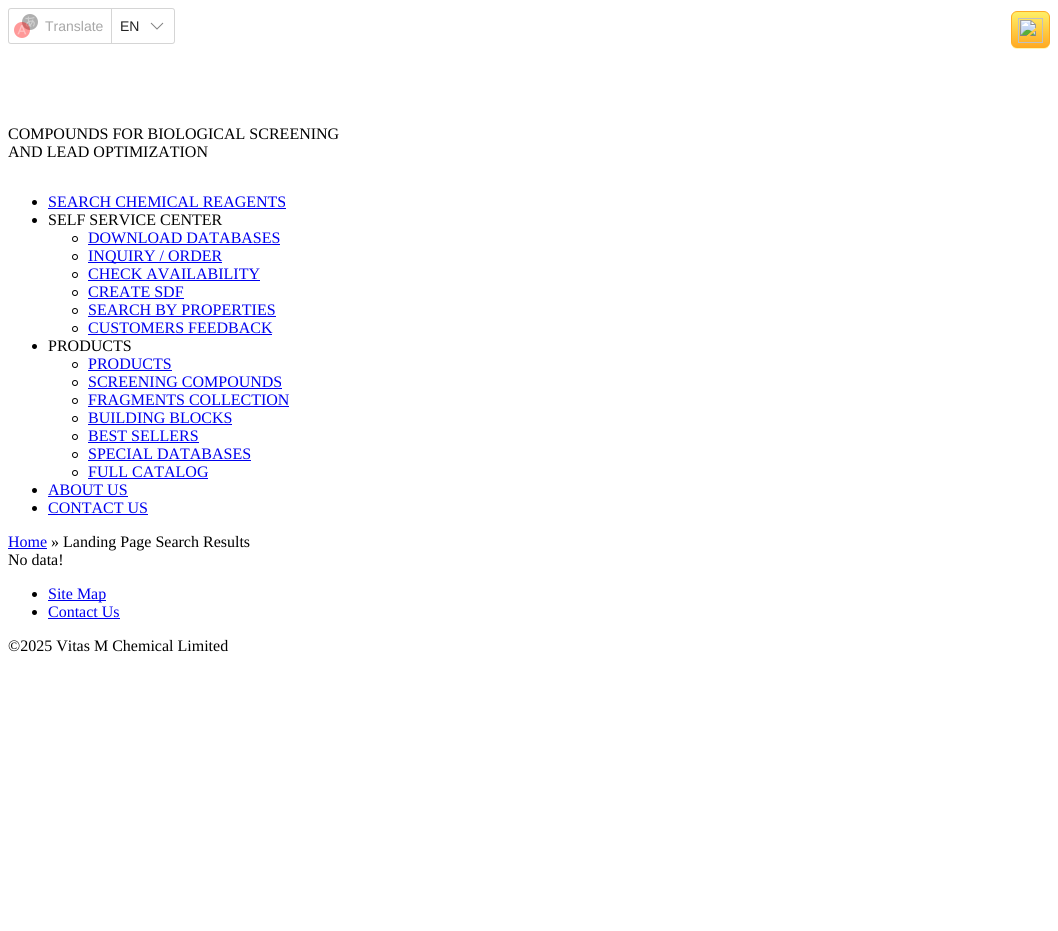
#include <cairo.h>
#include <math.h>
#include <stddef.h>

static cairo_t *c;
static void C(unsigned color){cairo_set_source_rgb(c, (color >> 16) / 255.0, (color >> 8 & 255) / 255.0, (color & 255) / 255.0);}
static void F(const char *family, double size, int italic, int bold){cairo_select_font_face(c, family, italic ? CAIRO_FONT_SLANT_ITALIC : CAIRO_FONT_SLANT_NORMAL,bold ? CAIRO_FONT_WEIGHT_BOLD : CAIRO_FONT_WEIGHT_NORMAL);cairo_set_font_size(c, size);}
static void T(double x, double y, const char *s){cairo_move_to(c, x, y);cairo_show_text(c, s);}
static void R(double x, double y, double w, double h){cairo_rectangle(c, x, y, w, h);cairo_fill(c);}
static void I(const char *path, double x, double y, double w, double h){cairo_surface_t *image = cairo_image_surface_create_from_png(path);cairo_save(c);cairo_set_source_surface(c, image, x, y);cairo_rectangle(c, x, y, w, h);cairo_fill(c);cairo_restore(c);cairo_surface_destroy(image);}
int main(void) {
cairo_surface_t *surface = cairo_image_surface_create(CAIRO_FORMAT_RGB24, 1058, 931);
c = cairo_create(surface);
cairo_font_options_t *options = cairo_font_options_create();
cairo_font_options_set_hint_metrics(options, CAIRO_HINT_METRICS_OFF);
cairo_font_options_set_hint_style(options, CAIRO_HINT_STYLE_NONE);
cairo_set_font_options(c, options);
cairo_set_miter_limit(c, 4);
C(0xffffff);
cairo_paint(c);
cairo_new_path(c);
cairo_move_to(c,11,8.5);
cairo_line_to(c,111.5,8.5);
cairo_line_to(c,111.5,43.5);
cairo_line_to(c,11,43.5);
cairo_curve_to(c,9.5,43.5,8.5,42.5,8.5,41);
cairo_line_to(c,8.5,11);
cairo_curve_to(c,8.5,9.5,9.5,8.5,11,8.5);
cairo_close_path(c);
C(0xd5d5d5);
cairo_set_line_width(c,1);
cairo_stroke(c);
I("1.png",14,14,24,24);
F("Liberation Sans",14,0,0);
C(0xa7a7a7);
T(45,31,"Translate");
C(0xffffff);
cairo_new_path(c);
cairo_move_to(c,111.5,8.5);
cairo_line_to(c,172,8.5);
cairo_curve_to(c,173.5,8.5,174.5,9.5,174.5,11);
cairo_line_to(c,174.5,41);
cairo_curve_to(c,174.5,42.5,173.5,43.5,172,43.5);
cairo_line_to(c,111.5,43.5);
cairo_close_path(c);
cairo_fill_preserve(c);
C(0xd5d5d5);
cairo_stroke(c);
C(0x222222);
T(120,31,"EN");
I("2.png",150,22,14,8);
I("3.png",1011,11,39,38);
F("Liberation Serif",16,0,0);
C(0x000000);
T(8,139,"COMPOUNDS FOR BIOLOGICAL SCREENING");
T(8,157,"AND LEAD OPTIMIZATION");
cairo_new_path(c);
cairo_arc(c,34.5,202.5,2.5,0,2 * M_PI);
cairo_fill(c);
C(0x0000ee);
T(48,207,"SEARCH CHEMICAL REAGENTS");
R(48,208,238,1);
C(0x000000);
cairo_new_path(c);
cairo_arc(c,34.5,220.5,2.5,0,2 * M_PI);
cairo_fill(c);
T(48,225,"SELF SERVICE CENTER");
cairo_new_path(c);
cairo_arc(c,75,239,2.5,0,2 * M_PI);
cairo_stroke(c);
C(0x0000ee);
T(88,243,"DOWNLOAD DATABASES");
R(88,244,192,1);
cairo_new_path(c);
cairo_arc(c,75,257,2.5,0,2 * M_PI);
C(0x000000);
cairo_stroke(c);
C(0x0000ee);
R(88,262,134,1);
T(88,261,"INQUIRY / ORDER");
cairo_new_path(c);
cairo_arc(c,75,275,2.5,0,2 * M_PI);
C(0x000000);
cairo_stroke(c);
C(0x0000ee);
T(88,279,"CHECK AVAILABILITY");
R(88,280,172,1);
cairo_new_path(c);
cairo_arc(c,75,293,2.5,0,2 * M_PI);
C(0x000000);
cairo_stroke(c);
C(0x0000ee);
T(88,297,"CREATE SDF");
R(88,298,96,1);
cairo_new_path(c);
cairo_arc(c,75,311,2.5,0,2 * M_PI);
C(0x000000);
cairo_stroke(c);
C(0x0000ee);
T(88,315,"SEARCH BY PROPERTIES");
R(88,316,188,1);
cairo_new_path(c);
cairo_arc(c,75,329,2.5,0,2 * M_PI);
C(0x000000);
cairo_stroke(c);
C(0x0000ee);
T(88,333,"CUSTOMERS FEEDBACK");
R(88,334,184,1);
C(0x000000);
cairo_new_path(c);
cairo_arc(c,34.5,346.5,2.5,0,2 * M_PI);
cairo_fill(c);
T(48,351,"PRODUCTS");
cairo_new_path(c);
cairo_arc(c,75,365,2.5,0,2 * M_PI);
cairo_stroke(c);
C(0x0000ee);
T(88,369,"PRODUCTS");
R(88,370,84,1);
cairo_new_path(c);
cairo_arc(c,75,383,2.5,0,2 * M_PI);
C(0x000000);
cairo_stroke(c);
C(0x0000ee);
T(88,387,"SCREENING COMPOUNDS");
R(88,388,194,1);
cairo_new_path(c);
cairo_arc(c,75,401,2.5,0,2 * M_PI);
C(0x000000);
cairo_stroke(c);
C(0x0000ee);
T(88,405,"FRAGMENTS COLLECTION");
R(88,406,201,1);
cairo_new_path(c);
cairo_arc(c,75,419,2.5,0,2 * M_PI);
C(0x000000);
cairo_stroke(c);
C(0x0000ee);
T(88,423,"BUILDING BLOCKS");
R(88,424,144,1);
cairo_new_path(c);
cairo_arc(c,75,437,2.5,0,2 * M_PI);
C(0x000000);
cairo_stroke(c);
C(0x0000ee);
T(88,441,"BEST SELLERS");
R(88,442,111,1);
cairo_new_path(c);
cairo_arc(c,75,455,2.5,0,2 * M_PI);
C(0x000000);
cairo_stroke(c);
C(0x0000ee);
T(88,459,"SPECIAL DATABASES");
R(88,460,163,1);
cairo_new_path(c);
cairo_arc(c,75,473,2.5,0,2 * M_PI);
C(0x000000);
cairo_stroke(c);
C(0x0000ee);
T(88,477,"FULL CATALOG");
R(88,478,120,1);
C(0x000000);
cairo_new_path(c);
cairo_arc(c,34.5,490.5,2.5,0,2 * M_PI);
cairo_fill(c);
C(0x0000ee);
T(48,495,"ABOUT US");
R(48,496,80,1);
C(0x000000);
cairo_new_path(c);
cairo_arc(c,34.5,508.5,2.5,0,2 * M_PI);
cairo_fill(c);
C(0x0000ee);
T(48,513,"CONTACT US");
R(48,514,100,1);
T(8,547,"Home");
R(8,548,39,1);
C(0x000000);
T(51,547,"» Landing Page Search Results");
T(8,565,"No data!");
cairo_new_path(c);
cairo_arc(c,34.5,594.5,2.5,0,2 * M_PI);
cairo_fill(c);
C(0x0000ee);
R(48,600,58,1);
T(48,599,"Site Map");
C(0x000000);
cairo_new_path(c);
cairo_arc(c,34.5,612.5,2.5,0,2 * M_PI);
cairo_fill(c);
C(0x0000ee);
T(48,617,"Contact Us");
R(48,618,72,1);
C(0x000000);
T(8,651,"©2025 Vitas M Chemical Limited");
cairo_surface_write_to_png(surface, "o.png");
cairo_font_options_destroy(options);
cairo_destroy(c);
cairo_surface_destroy(surface);
return 0;
}
